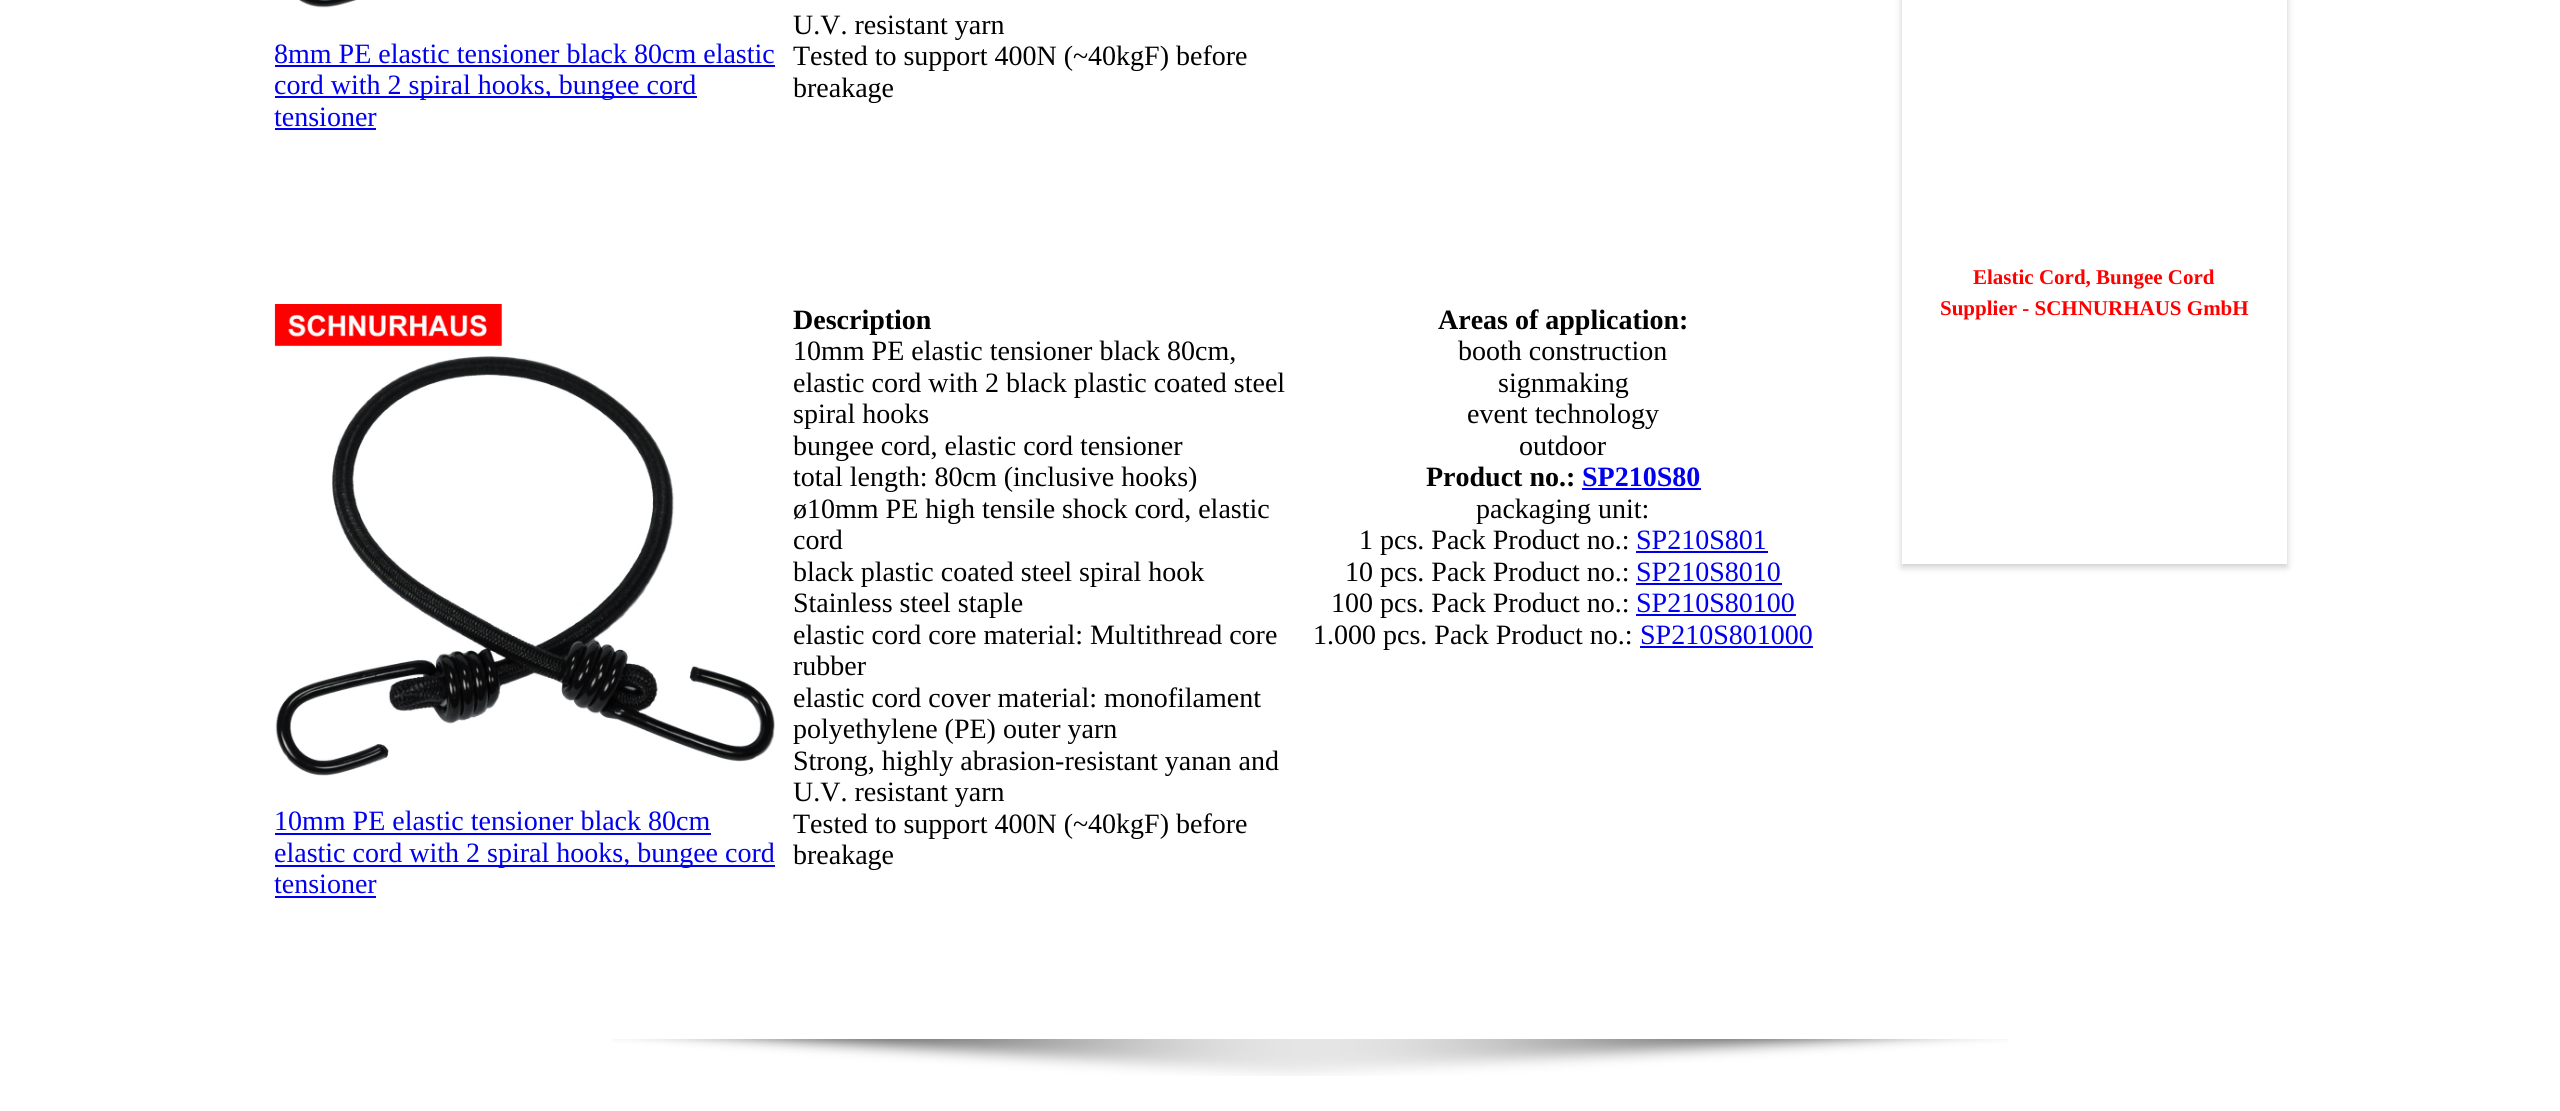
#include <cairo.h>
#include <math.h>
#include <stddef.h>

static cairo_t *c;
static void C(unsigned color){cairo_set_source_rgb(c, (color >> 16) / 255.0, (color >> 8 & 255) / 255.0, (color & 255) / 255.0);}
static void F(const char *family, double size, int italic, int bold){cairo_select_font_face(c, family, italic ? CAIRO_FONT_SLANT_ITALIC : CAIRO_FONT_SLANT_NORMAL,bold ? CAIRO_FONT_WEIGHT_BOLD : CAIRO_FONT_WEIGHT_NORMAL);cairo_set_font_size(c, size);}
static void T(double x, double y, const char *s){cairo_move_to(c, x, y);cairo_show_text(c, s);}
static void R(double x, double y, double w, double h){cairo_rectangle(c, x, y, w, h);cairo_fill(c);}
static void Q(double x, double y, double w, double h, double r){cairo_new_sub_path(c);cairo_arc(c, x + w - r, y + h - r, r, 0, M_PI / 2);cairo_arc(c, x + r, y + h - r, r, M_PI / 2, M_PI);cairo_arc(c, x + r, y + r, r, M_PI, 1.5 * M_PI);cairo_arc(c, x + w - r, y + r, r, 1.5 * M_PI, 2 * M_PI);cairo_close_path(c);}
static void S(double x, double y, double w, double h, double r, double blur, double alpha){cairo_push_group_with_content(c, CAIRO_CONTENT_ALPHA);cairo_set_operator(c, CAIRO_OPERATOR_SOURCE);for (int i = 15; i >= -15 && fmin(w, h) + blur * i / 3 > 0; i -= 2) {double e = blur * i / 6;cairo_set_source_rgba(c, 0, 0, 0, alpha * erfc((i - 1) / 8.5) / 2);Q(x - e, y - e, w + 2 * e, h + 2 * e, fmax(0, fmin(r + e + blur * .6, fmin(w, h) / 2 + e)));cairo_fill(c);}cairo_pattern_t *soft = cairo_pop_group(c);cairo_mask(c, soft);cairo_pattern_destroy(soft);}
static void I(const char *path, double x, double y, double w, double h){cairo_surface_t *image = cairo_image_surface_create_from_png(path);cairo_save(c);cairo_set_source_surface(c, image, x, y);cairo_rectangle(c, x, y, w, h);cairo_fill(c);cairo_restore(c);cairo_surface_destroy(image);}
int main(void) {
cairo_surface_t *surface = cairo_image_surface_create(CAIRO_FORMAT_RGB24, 2560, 1111);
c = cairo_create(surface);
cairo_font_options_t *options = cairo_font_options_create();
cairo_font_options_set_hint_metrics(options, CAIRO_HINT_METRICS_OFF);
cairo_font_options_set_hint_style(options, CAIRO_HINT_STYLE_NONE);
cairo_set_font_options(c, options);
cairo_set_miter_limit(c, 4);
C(0xffffff);
cairo_paint(c);
I("1.png",299,0,58,8);
F("Liberation Serif",28,0,0);
C(0x0000ee);
T(274,63,"8mm PE elastic tensioner black 80cm elastic");
R(275,65,500,2);
R(275,96,422,2);
T(274,94,"cord with 2 spiral hooks, bungee cord");
T(274,126,"tensioner");
R(275,128,101,2);
C(0x000000);
T(793,34,"U.V. resistant yarn");
T(793,65,"Tested to support 400N (~40kgF) before");
T(793,97,"breakage");
F("Liberation Serif",28,0,1);
T(793,329,"Description");
F("Liberation Serif",28,0,0);
T(793,360,"10mm PE elastic tensioner black 80cm,");
T(793,392,"elastic cord with 2 black plastic coated steel");
T(793,423,"spiral hooks");
T(793,455,"bungee cord, elastic cord tensioner");
T(793,486,"total length: 80cm (inclusive hooks)");
T(793,518,"ø10mm PE high tensile shock cord, elastic");
T(793,549,"cord");
T(793,581,"black plastic coated steel spiral hook");
T(793,612,"Stainless steel staple");
T(793,644,"elastic cord core material: Multithread core");
T(793,675,"rubber");
T(793,707,"elastic cord cover material: monofilament");
T(793,738,"polyethylene (PE) outer yarn");
T(793,770,"Strong, highly abrasion-resistant yanan and");
T(793,801,"U.V. resistant yarn");
T(793,833,"Tested to support 400N (~40kgF) before");
T(793,864,"breakage");
F("Liberation Serif",28,0,1);
T(1438,329,"Areas of application:");
F("Liberation Serif",28,0,0);
T(1458,360,"booth construction");
T(1498,392,"signmaking");
T(1467,423,"event technology");
T(1519,455,"outdoor");
F("Liberation Serif",28,0,1);
T(1426,486,"Product no.:");
C(0x0000ee);
T(1582,486,"SP210S80");
R(1582,488,119,2);
F("Liberation Serif",28,0,0);
C(0x000000);
T(1476,518,"packaging unit:");
T(1359,549,"1 pcs. Pack Product no.:");
C(0x0000ee);
T(1636,549,"SP210S801");
R(1636,551,132,2);
C(0x000000);
T(1345,581,"10 pcs. Pack Product no.:");
C(0x0000ee);
T(1636,581,"SP210S8010");
R(1636,583,146,2);
C(0x000000);
T(1331,612,"100 pcs. Pack Product no.:");
C(0x0000ee);
T(1636,612,"SP210S80100");
R(1636,614,160,2);
C(0x000000);
T(1313,644,"1.000 pcs. Pack Product no.:");
C(0x0000ee);
T(1640,644,"SP210S801000");
R(1640,646,173,2);
I("2.png",274,304,501,472);
T(274,830,"10mm PE elastic tensioner black 80cm");
R(275,833,436,2);
R(275,865,500,2);
T(274,862,"elastic cord with 2 spiral hooks, bungee cord");
T(274,893,"tensioner");
R(275,896,101,2);
cairo_save(c);
cairo_set_fill_rule(c,CAIRO_FILL_RULE_EVEN_ODD);
cairo_new_path(c);
cairo_move_to(c,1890,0);
cairo_line_to(c,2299,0);
cairo_line_to(c,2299,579);
cairo_line_to(c,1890,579);
cairo_close_path(c);
cairo_move_to(c,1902,-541);
cairo_line_to(c,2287,-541);
cairo_line_to(c,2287,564);
cairo_line_to(c,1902,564);
cairo_close_path(c);
cairo_clip(c);
C(0xcccccc);
S(1902,-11,385,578,0,3.5,1);
cairo_restore(c);
F("Liberation Serif",21,0,1);
C(0xff0000);
T(1973,284,"Elastic Cord, Bungee Cord");
T(1940,315,"Supplier - SCHNURHAUS GmbH");
I("3.png",612,1039,1396,37);
cairo_surface_write_to_png(surface, "o.png");
cairo_font_options_destroy(options);
cairo_destroy(c);
cairo_surface_destroy(surface);
return 0;
}
